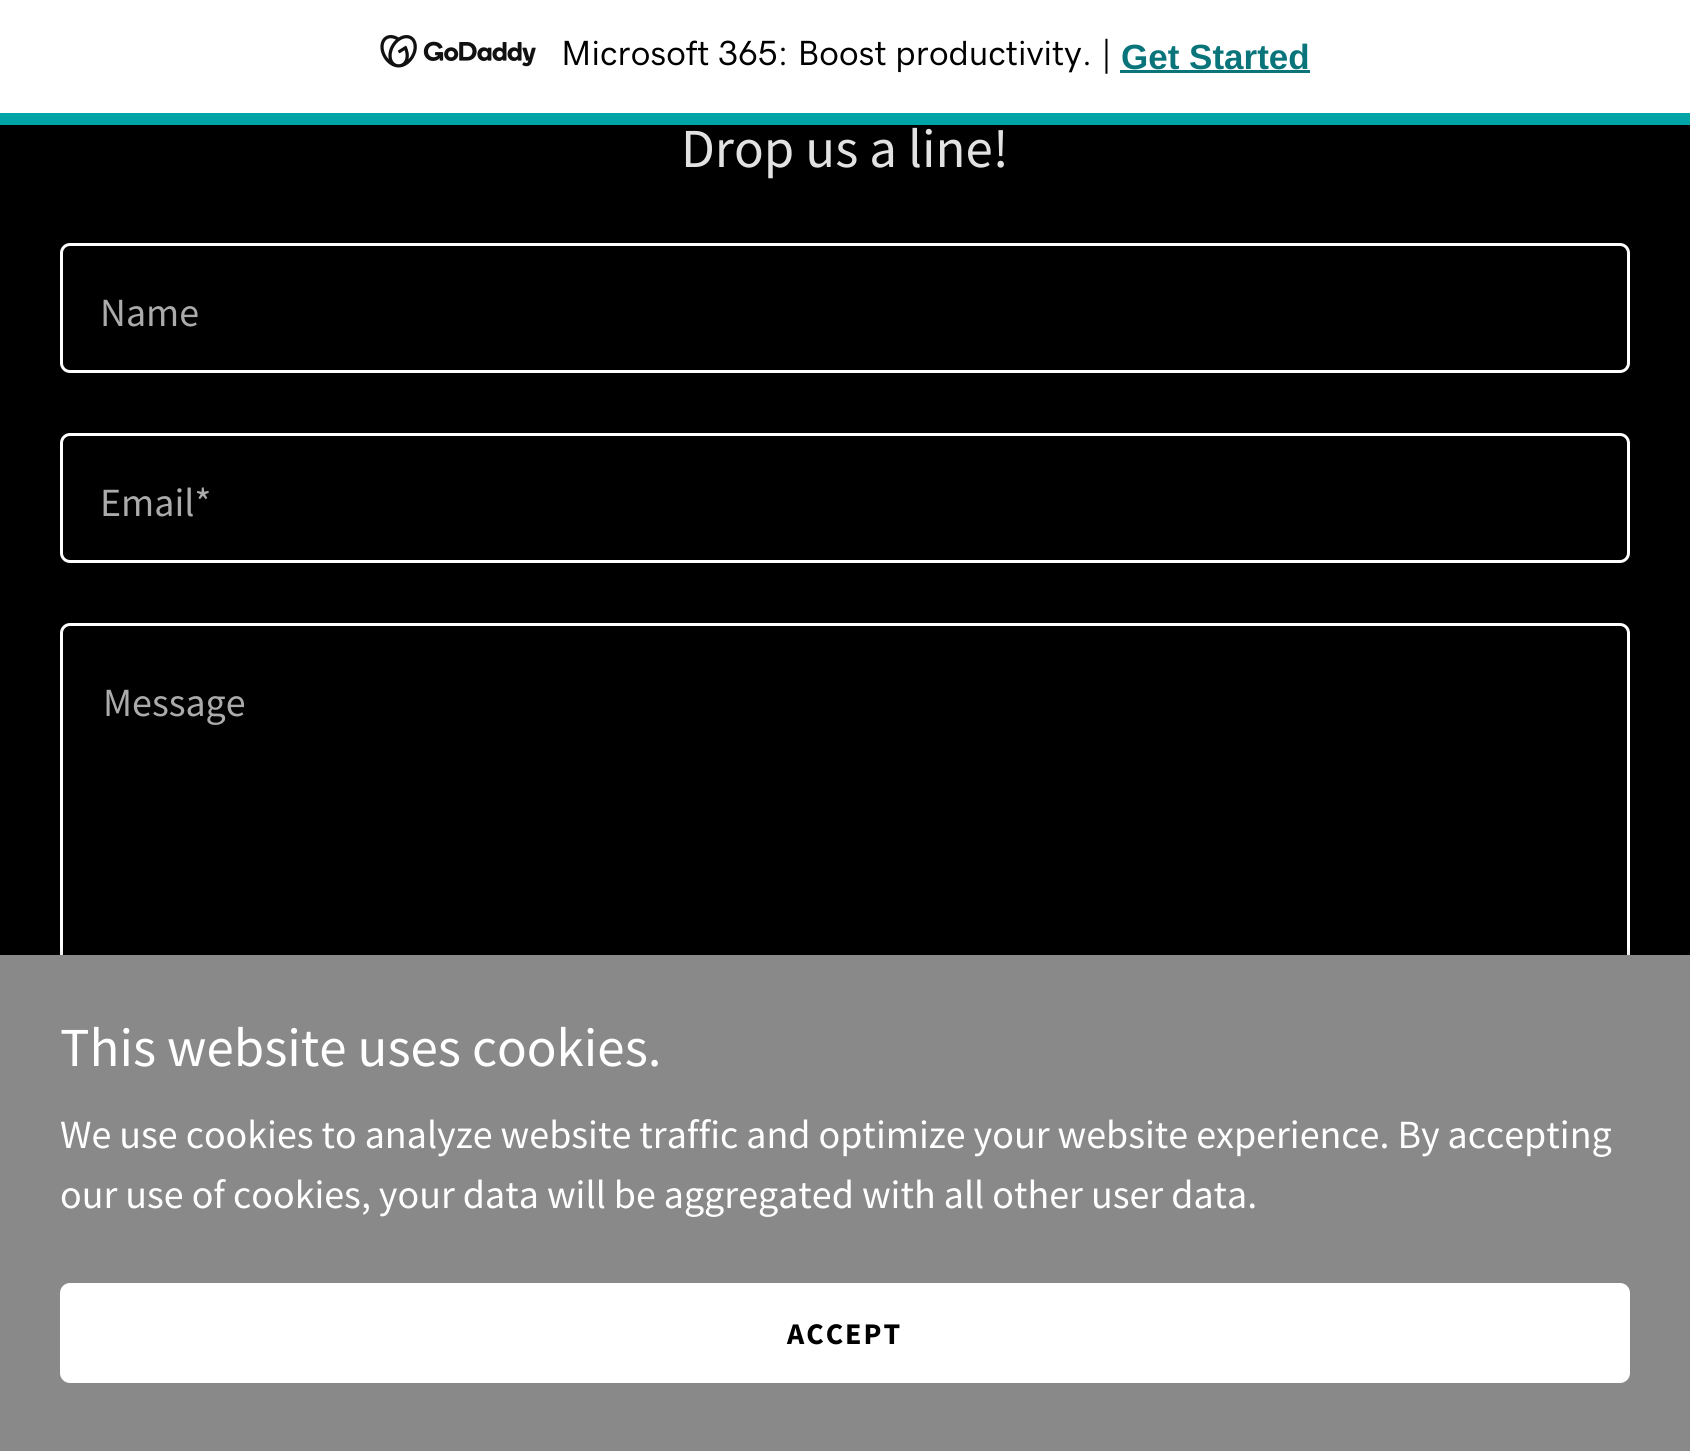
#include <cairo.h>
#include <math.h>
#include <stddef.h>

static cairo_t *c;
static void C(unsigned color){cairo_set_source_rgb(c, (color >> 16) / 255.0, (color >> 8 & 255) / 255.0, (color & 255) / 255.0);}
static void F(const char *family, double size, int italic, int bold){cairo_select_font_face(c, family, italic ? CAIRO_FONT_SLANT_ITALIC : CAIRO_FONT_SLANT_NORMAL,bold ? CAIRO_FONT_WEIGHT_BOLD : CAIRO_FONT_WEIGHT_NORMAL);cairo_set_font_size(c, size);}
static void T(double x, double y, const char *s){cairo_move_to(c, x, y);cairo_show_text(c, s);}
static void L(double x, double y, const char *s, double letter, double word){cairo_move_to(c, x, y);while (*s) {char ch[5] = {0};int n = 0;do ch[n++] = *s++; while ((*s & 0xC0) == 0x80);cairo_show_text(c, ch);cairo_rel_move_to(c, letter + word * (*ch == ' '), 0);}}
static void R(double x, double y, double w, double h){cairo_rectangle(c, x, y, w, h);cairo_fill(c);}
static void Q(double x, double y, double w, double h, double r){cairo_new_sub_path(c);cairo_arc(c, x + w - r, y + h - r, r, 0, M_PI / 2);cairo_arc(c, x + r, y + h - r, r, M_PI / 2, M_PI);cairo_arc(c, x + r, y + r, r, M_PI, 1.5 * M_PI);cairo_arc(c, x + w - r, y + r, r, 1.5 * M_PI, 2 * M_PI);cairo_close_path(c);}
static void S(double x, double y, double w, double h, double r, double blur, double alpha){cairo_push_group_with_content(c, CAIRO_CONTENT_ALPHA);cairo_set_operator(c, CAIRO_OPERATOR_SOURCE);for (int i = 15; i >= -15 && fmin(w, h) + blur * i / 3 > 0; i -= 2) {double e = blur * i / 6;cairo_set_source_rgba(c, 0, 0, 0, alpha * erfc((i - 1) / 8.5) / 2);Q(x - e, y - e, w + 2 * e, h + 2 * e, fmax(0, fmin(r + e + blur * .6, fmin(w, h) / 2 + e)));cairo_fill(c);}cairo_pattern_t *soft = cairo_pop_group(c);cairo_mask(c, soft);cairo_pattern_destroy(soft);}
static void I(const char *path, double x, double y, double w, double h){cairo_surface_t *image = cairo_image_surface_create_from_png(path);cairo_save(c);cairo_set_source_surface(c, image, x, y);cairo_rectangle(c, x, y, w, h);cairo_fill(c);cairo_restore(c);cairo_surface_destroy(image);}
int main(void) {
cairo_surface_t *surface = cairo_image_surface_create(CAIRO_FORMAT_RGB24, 1690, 1451);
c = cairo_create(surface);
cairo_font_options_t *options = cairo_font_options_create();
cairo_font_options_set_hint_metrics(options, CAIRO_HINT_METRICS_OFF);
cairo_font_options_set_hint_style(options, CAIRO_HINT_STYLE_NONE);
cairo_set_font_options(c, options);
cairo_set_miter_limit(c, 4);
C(0x000000);
cairo_paint(c);
C(0xffffff);
R(0,0,1690,113);
C(0x00a4a6);
R(0,113,1690,12);
I("1.png",380,35,156,33);
F("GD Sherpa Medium",35,0,0);
C(0x000000);
T(561,65,"Microsoft 365: Boost productivity. |");
F("Liberation Sans",35,0,1);
C(0x09757a);
T(1121,69,"Get Started");
R(1120,70,190,3);
F("Source Sans Pro",55,0,0);
C(0xe2e2e2);
T(681,167,"Drop us a line!");
Q(61.5,244.5,1567,127,8.5);
C(0xffffff);
cairo_set_line_width(c,3);
cairo_stroke(c);
F("Source Sans Pro",40,0,0);
C(0xababab);
T(100,326,"Name");
Q(61.5,434.5,1567,127,8.5);
C(0xffffff);
cairo_stroke(c);
C(0xababab);
T(100,516,"Email*");
Q(61.5,624.5,1567,502,8.5);
C(0xffffff);
cairo_stroke(c);
C(0xababab);
T(103,716,"Message");
C(0x000000);
S(0,960,1690,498,0,7.5,.3);
C(0x898989);
R(0,955,1690,496);
F("Source Sans Pro",55,0,0);
C(0xffffff);
T(60,1066,"This website uses cookies.");
F("Source Sans Pro",40,0,0);
T(60,1148,"We use cookies to analyze website traffic and optimize your website experience. By accepting");
T(60,1208,"our use of cookies, your data will be aggregated with all other user data.");
Q(60,1283,1570,100,10);
cairo_fill(c);
F("Source Sans Pro",30,0,1);
C(0x000000);
L(787,1344,"ACCEPT",2,0);
cairo_surface_write_to_png(surface, "o.png");
cairo_font_options_destroy(options);
cairo_destroy(c);
cairo_surface_destroy(surface);
return 0;
}
